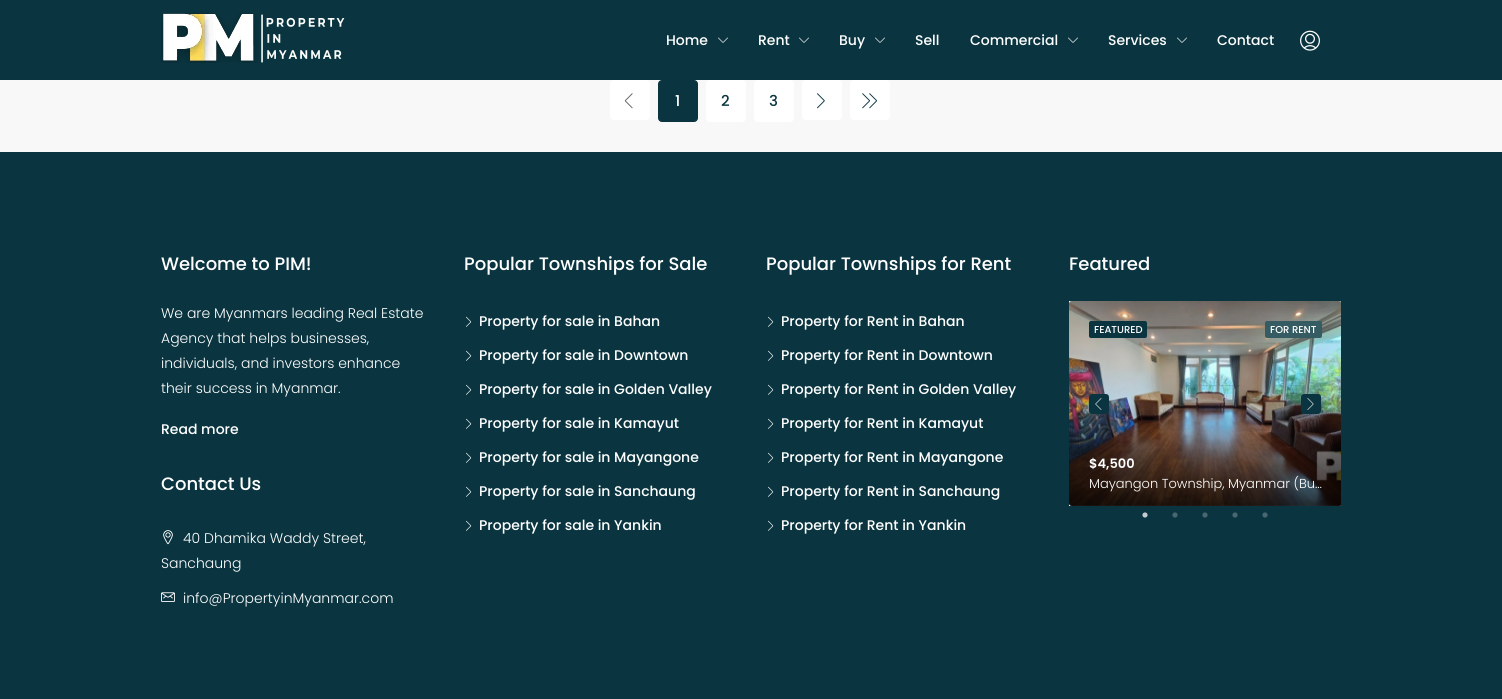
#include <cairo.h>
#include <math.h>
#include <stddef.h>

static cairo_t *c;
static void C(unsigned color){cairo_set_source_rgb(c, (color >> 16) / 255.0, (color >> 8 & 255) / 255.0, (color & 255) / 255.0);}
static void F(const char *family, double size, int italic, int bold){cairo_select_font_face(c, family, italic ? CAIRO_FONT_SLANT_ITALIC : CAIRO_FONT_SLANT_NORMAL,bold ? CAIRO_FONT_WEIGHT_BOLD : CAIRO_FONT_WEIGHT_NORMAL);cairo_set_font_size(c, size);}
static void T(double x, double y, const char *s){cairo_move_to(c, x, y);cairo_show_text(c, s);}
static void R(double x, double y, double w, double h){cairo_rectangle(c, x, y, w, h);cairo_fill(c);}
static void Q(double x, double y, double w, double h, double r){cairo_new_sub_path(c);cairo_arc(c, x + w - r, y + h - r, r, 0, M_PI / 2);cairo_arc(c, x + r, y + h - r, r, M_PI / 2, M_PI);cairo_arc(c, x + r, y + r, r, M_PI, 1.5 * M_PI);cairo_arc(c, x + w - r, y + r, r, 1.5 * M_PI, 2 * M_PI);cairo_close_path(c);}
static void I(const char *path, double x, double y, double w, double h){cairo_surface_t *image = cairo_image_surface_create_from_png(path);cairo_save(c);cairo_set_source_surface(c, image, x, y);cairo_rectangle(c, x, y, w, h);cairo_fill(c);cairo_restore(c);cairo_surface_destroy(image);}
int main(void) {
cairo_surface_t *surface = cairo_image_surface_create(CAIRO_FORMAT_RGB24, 1502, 699);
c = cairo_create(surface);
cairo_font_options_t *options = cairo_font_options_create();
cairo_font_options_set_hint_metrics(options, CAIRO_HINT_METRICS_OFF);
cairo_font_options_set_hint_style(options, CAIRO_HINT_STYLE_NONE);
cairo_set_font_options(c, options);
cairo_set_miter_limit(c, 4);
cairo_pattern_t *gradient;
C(0xf8f8f8);
cairo_paint(c);
C(0x0a3540);
R(0,0,1502,80);
I("1.png",161,13,184,50);
F("Poppins Medium",14,0,0);
C(0xffffff);
T(666,45,"Home");
I("2.png",718,37,10,6);
T(758,45,"Rent");
I("2.png",799,37,10,6);
T(839,45,"Buy");
I("2.png",875,37,10,6);
T(915,45,"Sell");
T(970,45,"Commercial");
I("2.png",1068,37,10,6);
T(1108,45,"Services");
I("2.png",1177,37,10,6);
T(1217,45,"Contact");
I("3.png",1300,30,20,21);
Q(610,80,40,40,4);
cairo_fill(c);
I("4.png",624,93,9,16);
C(0x0a3540);
Q(658.5,80.5,39,41,3.5);
cairo_fill_preserve(c);
cairo_set_line_width(c,1);
cairo_stroke(c);
F("Poppins Medium",15,0,0);
C(0xffffff);
T(675,106,"1");
Q(706,80,40,42,4);
cairo_fill(c);
C(0x0a3540);
T(721,106,"2");
C(0xffffff);
Q(754,80,40,42,4);
cairo_fill(c);
C(0x0a3540);
T(769,106,"3");
C(0xffffff);
Q(802,80,40,40,4);
cairo_fill(c);
I("5.png",817,93,8,16);
Q(850,80,40,40,4);
cairo_fill(c);
I("6.png",862,93,15,16);
C(0x0a3540);
R(0,152,1502,547);
F("Poppins Medium",18,0,0);
C(0xffffff);
T(161,270,"Welcome to PIM!");
F("Poppins Light",14,0,0);
T(161,318,"We are Myanmars leading Real Estate");
T(161,343,"Agency that helps businesses,");
T(161,368,"individuals, and investors enhance");
T(161,393,"their success in Myanmar.");
F("Poppins Medium",14,0,0);
T(161,434,"Read more");
F("Poppins Medium",18,0,0);
T(161,490,"Contact Us");
I("7.png",163,530,10,15);
F("Poppins Light",14,0,0);
T(183,543,"40 Dhamika Waddy Street,");
T(161,568,"Sanchaung");
I("8.png",161,592,14,10);
T(183,603,"info@PropertyinMyanmar.com");
F("Poppins Medium",18,0,0);
T(464,270,"Popular Townships for Sale");
I("9.png",466,316,6,11);
F("Poppins Medium",14,0,0);
T(479,326,"Property for sale in Bahan");
I("9.png",466,350,6,11);
T(479,360,"Property for sale in Downtown");
I("9.png",466,384,6,11);
T(479,394,"Property for sale in Golden Valley");
I("9.png",466,418,6,11);
T(479,428,"Property for sale in Kamayut");
I("9.png",466,452,6,11);
T(479,462,"Property for sale in Mayangone");
I("9.png",466,486,6,11);
T(479,496,"Property for sale in Sanchaung");
I("9.png",466,520,6,11);
T(479,530,"Property for sale in Yankin");
F("Poppins Medium",18,0,0);
T(766,270,"Popular Townships for Rent");
I("9.png",768,316,6,11);
F("Poppins Medium",14,0,0);
T(781,326,"Property for Rent in Bahan");
I("9.png",768,350,6,11);
T(781,360,"Property for Rent in Downtown");
I("9.png",768,384,6,11);
T(781,394,"Property for Rent in Golden Valley");
I("9.png",768,418,6,11);
T(781,428,"Property for Rent in Kamayut");
I("9.png",768,452,6,11);
T(781,462,"Property for Rent in Mayangone");
I("9.png",768,486,6,11);
T(781,496,"Property for Rent in Sanchaung");
I("9.png",768,520,6,11);
T(781,530,"Property for Rent in Yankin");
F("Poppins Medium",18,0,0);
T(1069,270,"Featured");
R(1069,301,272,205);
I("10.png",1069,301,272,205);
C(0x355c62);
Q(1265,321,57,17,2);
cairo_fill(c);
F("Poppins Medium",10,0,0);
C(0xffffff);
T(1270,333,"FOR RENT");
cairo_save(c);
Q(1069,301,273,205,3);
cairo_clip(c);
gradient = cairo_pattern_create_linear(1206,301,1206,506);
cairo_pattern_add_color_stop_rgba(gradient,0,0,0,0,0);
cairo_pattern_add_color_stop_rgba(gradient,.5,0,0,0,0);
cairo_pattern_add_color_stop_rgba(gradient,1,0,0,0,.75);
cairo_set_source(c,gradient);
cairo_pattern_destroy(gradient);
cairo_new_path(c);
cairo_move_to(c,1072,301);
cairo_line_to(c,1341,301);
cairo_line_to(c,1341,506);
cairo_line_to(c,1072,506);
cairo_curve_to(c,1070.5,506,1069,504.5,1069,503);
cairo_line_to(c,1069,304);
cairo_curve_to(c,1069,302.5,1070.5,301,1072,301);
cairo_close_path(c);
cairo_fill(c);
cairo_restore(c);
C(0x0a3540);
Q(1089,321,58,17,2);
cairo_fill(c);
C(0xffffff);
T(1094,333,"FEATURED");
F("Poppins SemiBold",13,0,0);
T(1089,468,"$4,500");
F("Poppins Light",13,0,0);
T(1089,488,"Mayangon Township, Myanmar (Bu…");
C(0x0a3540);
Q(1089,394,20,20,3);
cairo_fill(c);
I("11.png",1095,398,7,12);
Q(1301,394,20,20,3);
cairo_fill(c);
I("12.png",1307,398,7,12);
I("13.png",1142,512,6,6);
I("14.png",1172,512,6,6);
I("14.png",1202,512,6,6);
I("14.png",1232,512,6,6);
I("14.png",1262,512,6,6);
cairo_surface_write_to_png(surface, "o.png");
cairo_font_options_destroy(options);
cairo_destroy(c);
cairo_surface_destroy(surface);
return 0;
}
